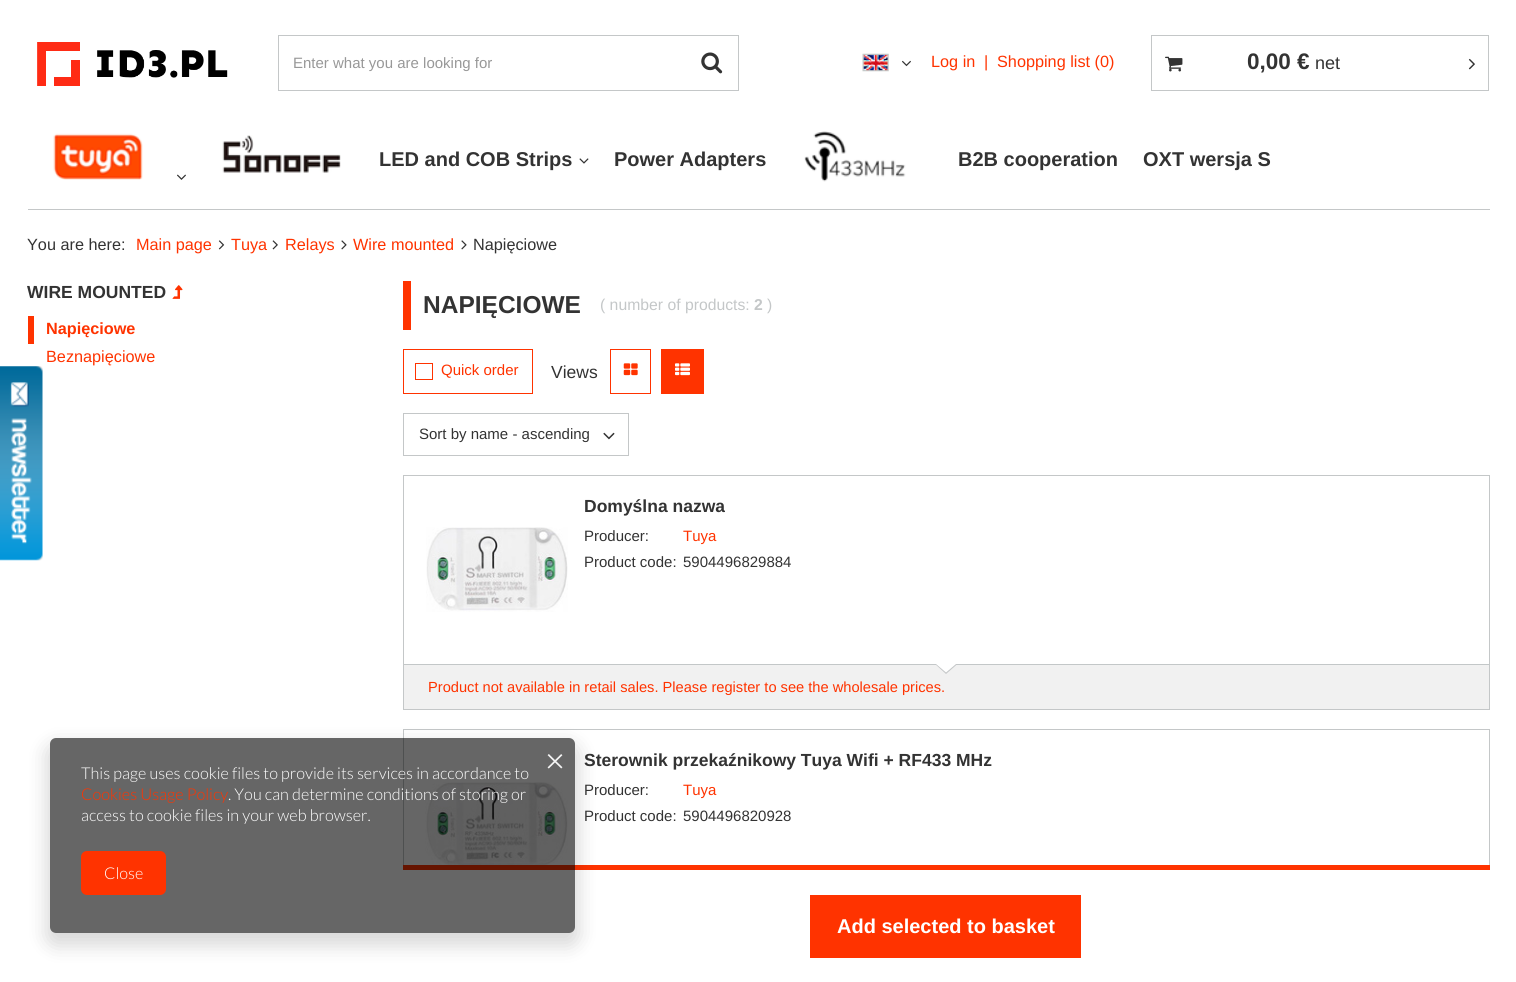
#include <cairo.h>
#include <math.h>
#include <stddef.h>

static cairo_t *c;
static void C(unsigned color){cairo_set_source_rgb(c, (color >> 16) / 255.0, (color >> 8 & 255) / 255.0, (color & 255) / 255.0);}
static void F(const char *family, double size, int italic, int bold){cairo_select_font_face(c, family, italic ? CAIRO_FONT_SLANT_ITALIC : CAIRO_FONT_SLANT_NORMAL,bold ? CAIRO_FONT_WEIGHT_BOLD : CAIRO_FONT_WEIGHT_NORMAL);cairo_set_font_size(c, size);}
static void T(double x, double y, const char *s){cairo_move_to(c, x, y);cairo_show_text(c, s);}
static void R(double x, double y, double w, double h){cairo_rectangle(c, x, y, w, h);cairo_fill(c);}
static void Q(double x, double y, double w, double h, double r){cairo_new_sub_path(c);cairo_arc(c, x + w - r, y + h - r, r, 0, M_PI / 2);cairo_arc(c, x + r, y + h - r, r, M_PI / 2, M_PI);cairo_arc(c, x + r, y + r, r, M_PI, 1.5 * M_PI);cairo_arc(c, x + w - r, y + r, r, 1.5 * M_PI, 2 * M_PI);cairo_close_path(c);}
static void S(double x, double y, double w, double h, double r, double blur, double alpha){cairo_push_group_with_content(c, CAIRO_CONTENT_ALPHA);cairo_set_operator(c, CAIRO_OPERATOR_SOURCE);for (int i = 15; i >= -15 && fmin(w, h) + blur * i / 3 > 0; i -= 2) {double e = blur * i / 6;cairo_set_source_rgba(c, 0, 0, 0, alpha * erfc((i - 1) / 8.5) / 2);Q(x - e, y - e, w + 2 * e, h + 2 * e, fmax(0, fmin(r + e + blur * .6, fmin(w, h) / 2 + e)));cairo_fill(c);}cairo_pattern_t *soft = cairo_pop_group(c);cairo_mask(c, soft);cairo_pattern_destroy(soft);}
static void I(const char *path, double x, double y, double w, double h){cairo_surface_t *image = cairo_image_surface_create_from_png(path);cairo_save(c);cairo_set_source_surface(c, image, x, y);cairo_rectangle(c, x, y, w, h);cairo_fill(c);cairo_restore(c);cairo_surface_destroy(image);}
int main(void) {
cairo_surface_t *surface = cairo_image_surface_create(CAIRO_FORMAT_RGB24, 1516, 982);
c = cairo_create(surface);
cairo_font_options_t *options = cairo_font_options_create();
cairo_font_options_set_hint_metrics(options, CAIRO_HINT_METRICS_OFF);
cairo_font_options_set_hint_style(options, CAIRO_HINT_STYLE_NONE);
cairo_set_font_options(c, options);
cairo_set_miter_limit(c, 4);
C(0xffffff);
cairo_paint(c);
I("1.png",0,366,43,195);
I("2.png",37,42,191,44);
cairo_rectangle(c,278.5,35.5,460,55);
C(0xc4c7c8);
cairo_set_line_width(c,1);
cairo_stroke(c);
F("Liberation Sans",15,0,0);
C(0x989898);
T(293,68,"Enter what you are looking for");
I("3.png",701,52,22,22);
I("4.png",862,53,27,19);
I("5.png",902,60,9,7);
F("Liberation Sans",16.25,0,0);
C(0xff3300);
T(931,67,"Log in");
T(984,67,"|");
T(997,67,"Shopping list (0)");
cairo_rectangle(c,1151.5,35.5,337,55);
C(0xc4c7c8);
cairo_stroke(c);
I("6.png",1165,56,18,16);
F("Liberation Sans",22.5,0,1);
C(0x333333);
T(1247,69,"0,00 €");
F("Liberation Sans",18,0,0);
T(1315,69,"net");
I("7.png",1468,58,7,12);
C(0xc4c7c8);
R(28,209,1462,1);
I("8.png",53,133,90,47);
I("9.png",177,174,9,6);
I("10.png",222,135,119,38);
F("Liberation Sans",20,0,1);
C(0x333333);
T(379,166,"LED and COB Strips");
I("11.png",579,158,10,6);
T(614,166,"Power Adapters");
I("12.png",804,131,102,51);
T(958,166,"B2B cooperation");
T(1143,166,"OXT wersja S");
F("Liberation Sans",16.25,0,0);
T(27,250,"You are here:");
C(0xff3300);
T(136,250,"Main page");
I("13.png",218,240,7,10);
T(231,250,"Tuya");
I("14.png",272,240,6,10);
T(285,250,"Relays");
I("15.png",341,240,6,10);
T(353,250,"Wire mounted");
I("15.png",461,240,6,10);
C(0x333333);
T(473,250,"Napięciowe");
F("Liberation Sans",17.5,0,1);
T(27,298,"WIRE MOUNTED");
I("16.png",172,285,11,14);
C(0xff3300);
R(28,316,6,28);
F("Liberation Sans",16.25,0,1);
T(46,334,"Napięciowe");
F("Liberation Sans",16.25,0,0);
T(46,362,"Beznapięciowe");
R(403,281,8,49);
F("Liberation Sans",24.5,0,1);
C(0x333333);
T(423,313,"NAPIĘCIOWE");
F("Liberation Sans",15.75,0,0);
C(0xc4c7c8);
T(600,310,"( number of products:");
F("Liberation Sans",15.75,0,1);
T(754,310,"2");
F("Liberation Sans",15.75,0,0);
T(767,310,")");
cairo_rectangle(c,403.5,349.5,129,44);
C(0xff3300);
cairo_stroke(c);
cairo_rectangle(c,415.5,363.5,17,16);
cairo_stroke(c);
F("Liberation Sans",15,0,0);
T(441,375,"Quick order");
F("Liberation Sans",17.5,0,0);
C(0x333333);
T(551,378,"Views");
cairo_rectangle(c,610.5,349.5,40,44);
C(0xff3300);
cairo_stroke(c);
I("17.png",623,363,15,13);
R(661,349,43,45);
I("18.png",675,363,15,13);
cairo_rectangle(c,403.5,413.5,225,42);
C(0xc4c7c8);
cairo_stroke(c);
F("Liberation Sans",15,0,0);
C(0x333333);
T(419,439,"Sort by name - ascending");
I("19.png",603,432,12,8);
cairo_rectangle(c,403.5,475.5,1086,234);
C(0xc4c7c8);
cairo_stroke(c);
I("20.png",426,527,142,85);
F("Liberation Sans",17.5,0,1);
C(0x333333);
T(584,512,"Domyślna nazwa");
F("Liberation Sans",15,0,0);
T(584,541,"Producer:");
C(0xff3300);
T(683,541,"Tuya");
C(0x333333);
T(584,567,"Product code:");
T(683,567,"5904496829884");
C(0xf1f1f1);
R(404,665,1085,44);
C(0xc3c7c8);
R(404,664,1085,1);
C(0xc4c7c8);
cairo_new_path(c);
cairo_move_to(c,935,664);
cairo_line_to(c,957.5,664);
cairo_line_to(c,946,674);
cairo_close_path(c);
cairo_fill(c);
C(0xffffff);
cairo_new_path(c);
cairo_move_to(c,936,664);
cairo_line_to(c,956,664);
cairo_line_to(c,946,672.5);
cairo_close_path(c);
cairo_fill(c);
F("Liberation Sans",14.65,0,0);
C(0xff3300);
T(428,692,"Product not available in retail sales. Please register to see the wholesale prices.");
cairo_rectangle(c,403.5,729.5,1086,234);
C(0xc4c7c8);
cairo_stroke(c);
I("21.png",425,782,143,83);
F("Liberation Sans",17.5,0,1);
C(0x333333);
T(584,766,"Sterownik przekaźnikowy Tuya Wifi + RF433 MHz");
F("Liberation Sans",15,0,0);
T(584,795,"Producer:");
C(0xff3300);
T(683,795,"Tuya");
C(0x333333);
T(584,821,"Product code:");
T(683,821,"5904496820928");
C(0xffffff);
R(403,870,1087,94);
C(0xff3300);
R(403,865,1087,5);
R(810,895,271,63);
F("Liberation Sans",20,0,1);
C(0xffffff);
T(837,933,"Add selected to basket");
cairo_save(c);
cairo_set_fill_rule(c,CAIRO_FILL_RULE_EVEN_ODD);
cairo_new_path(c);
cairo_move_to(c,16,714);
cairo_line_to(c,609,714);
cairo_line_to(c,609,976);
cairo_line_to(c,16,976);
cairo_close_path(c);
cairo_move_to(c,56,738);
cairo_line_to(c,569,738);
cairo_curve_to(c,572.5,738,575,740.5,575,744);
cairo_line_to(c,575,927);
cairo_curve_to(c,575,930.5,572.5,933,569,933);
cairo_line_to(c,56,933);
cairo_curve_to(c,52.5,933,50,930.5,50,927);
cairo_line_to(c,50,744);
cairo_curve_to(c,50,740.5,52.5,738,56,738);
cairo_close_path(c);
cairo_clip(c);
C(0x000000);
S(46,744,533,202,10,9.5,.15);
cairo_restore(c);
cairo_set_source_rgba(c,0,0,0,0.6);
Q(50,738,525,195,6);
cairo_fill(c);
I("22.png",547,754,16,15);
F("Lato Light",16.25,0,0);
C(0xffffff);
T(81,779,"This page uses cookie files to provide its services in accordance to");
C(0xff3300);
T(81,800,"Cookies Usage Policy");
C(0xffffff);
T(228,800,". You can determine conditions of storing or");
T(81,821,"access to cookie files in your web browser.");
C(0xff3300);
Q(81,851,85,44,6);
cairo_fill(c);
C(0xffffff);
T(104,879,"Close");
cairo_surface_write_to_png(surface, "o.png");
cairo_font_options_destroy(options);
cairo_destroy(c);
cairo_surface_destroy(surface);
return 0;
}
